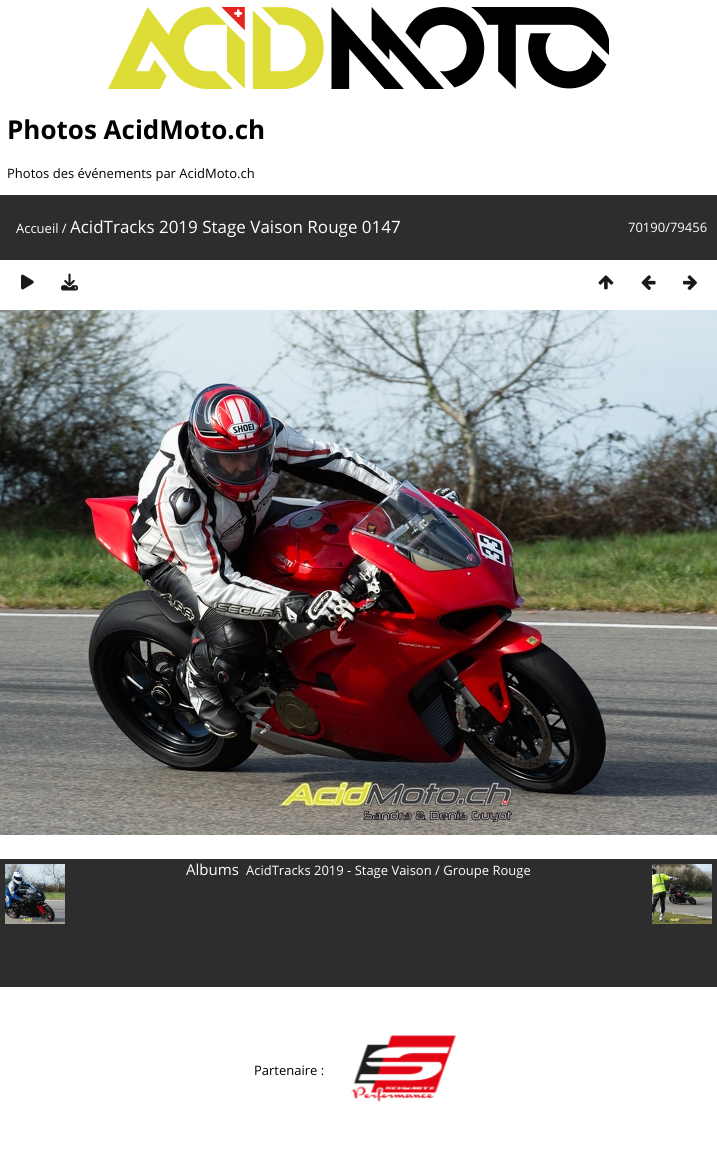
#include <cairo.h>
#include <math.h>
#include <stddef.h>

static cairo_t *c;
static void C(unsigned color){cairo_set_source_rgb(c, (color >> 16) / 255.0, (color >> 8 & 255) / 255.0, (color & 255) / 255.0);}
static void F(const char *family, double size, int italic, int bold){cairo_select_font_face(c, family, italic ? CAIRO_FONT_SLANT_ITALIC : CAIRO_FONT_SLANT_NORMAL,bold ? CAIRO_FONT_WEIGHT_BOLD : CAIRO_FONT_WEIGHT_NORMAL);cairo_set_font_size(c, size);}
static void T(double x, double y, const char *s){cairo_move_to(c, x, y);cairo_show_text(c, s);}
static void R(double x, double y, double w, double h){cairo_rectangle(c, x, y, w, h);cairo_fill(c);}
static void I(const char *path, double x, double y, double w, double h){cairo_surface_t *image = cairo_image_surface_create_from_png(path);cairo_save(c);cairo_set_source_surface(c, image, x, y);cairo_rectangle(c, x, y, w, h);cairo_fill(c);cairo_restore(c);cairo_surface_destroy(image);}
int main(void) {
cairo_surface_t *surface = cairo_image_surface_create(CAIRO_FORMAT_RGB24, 717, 1154);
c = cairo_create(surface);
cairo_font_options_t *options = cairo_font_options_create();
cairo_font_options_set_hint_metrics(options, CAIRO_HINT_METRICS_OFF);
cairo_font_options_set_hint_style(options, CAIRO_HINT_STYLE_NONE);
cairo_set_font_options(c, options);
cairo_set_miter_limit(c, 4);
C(0xffffff);
cairo_paint(c);
I("1.png",108,7,501,82);
F("Open Sans",26,0,1);
C(0x000000);
T(7,139,"Photos AcidMoto.ch");
F("Open Sans",13,0,0);
T(7,178,"Photos des événements par AcidMoto.ch");
C(0x2d2d2d);
R(0,195,717,65);
C(0xffffff);
T(16,233,"Accueil /");
F("Open Sans",17,0,0);
T(70,233,"AcidTracks 2019 Stage Vaison Rouge 0147");
F("Open Sans",13,0,0);
T(628,232,"70190/79456");
I("2.png",21,274,13,16);
I("3.png",61,273,17,18);
I("4.png",598,275,16,15);
I("5.png",641,275,15,15);
I("6.png",683,275,14,15);
I("7.png",0,310,717,525);
C(0x2d2d2d);
R(0,859,717,128);
F("Open Sans",15,0,0);
C(0xffffff);
T(186,875,"Albums");
F("Open Sans",13,0,0);
T(246,875,"AcidTracks 2019 - Stage Vaison / Groupe Rouge");
I("8.png",5,864,60,60);
I("9.png",652,864,60,60);
C(0x000000);
T(254,1075,"Partenaire :");
I("10.png",351,1035,106,67);
cairo_surface_write_to_png(surface, "o.png");
cairo_font_options_destroy(options);
cairo_destroy(c);
cairo_surface_destroy(surface);
return 0;
}
